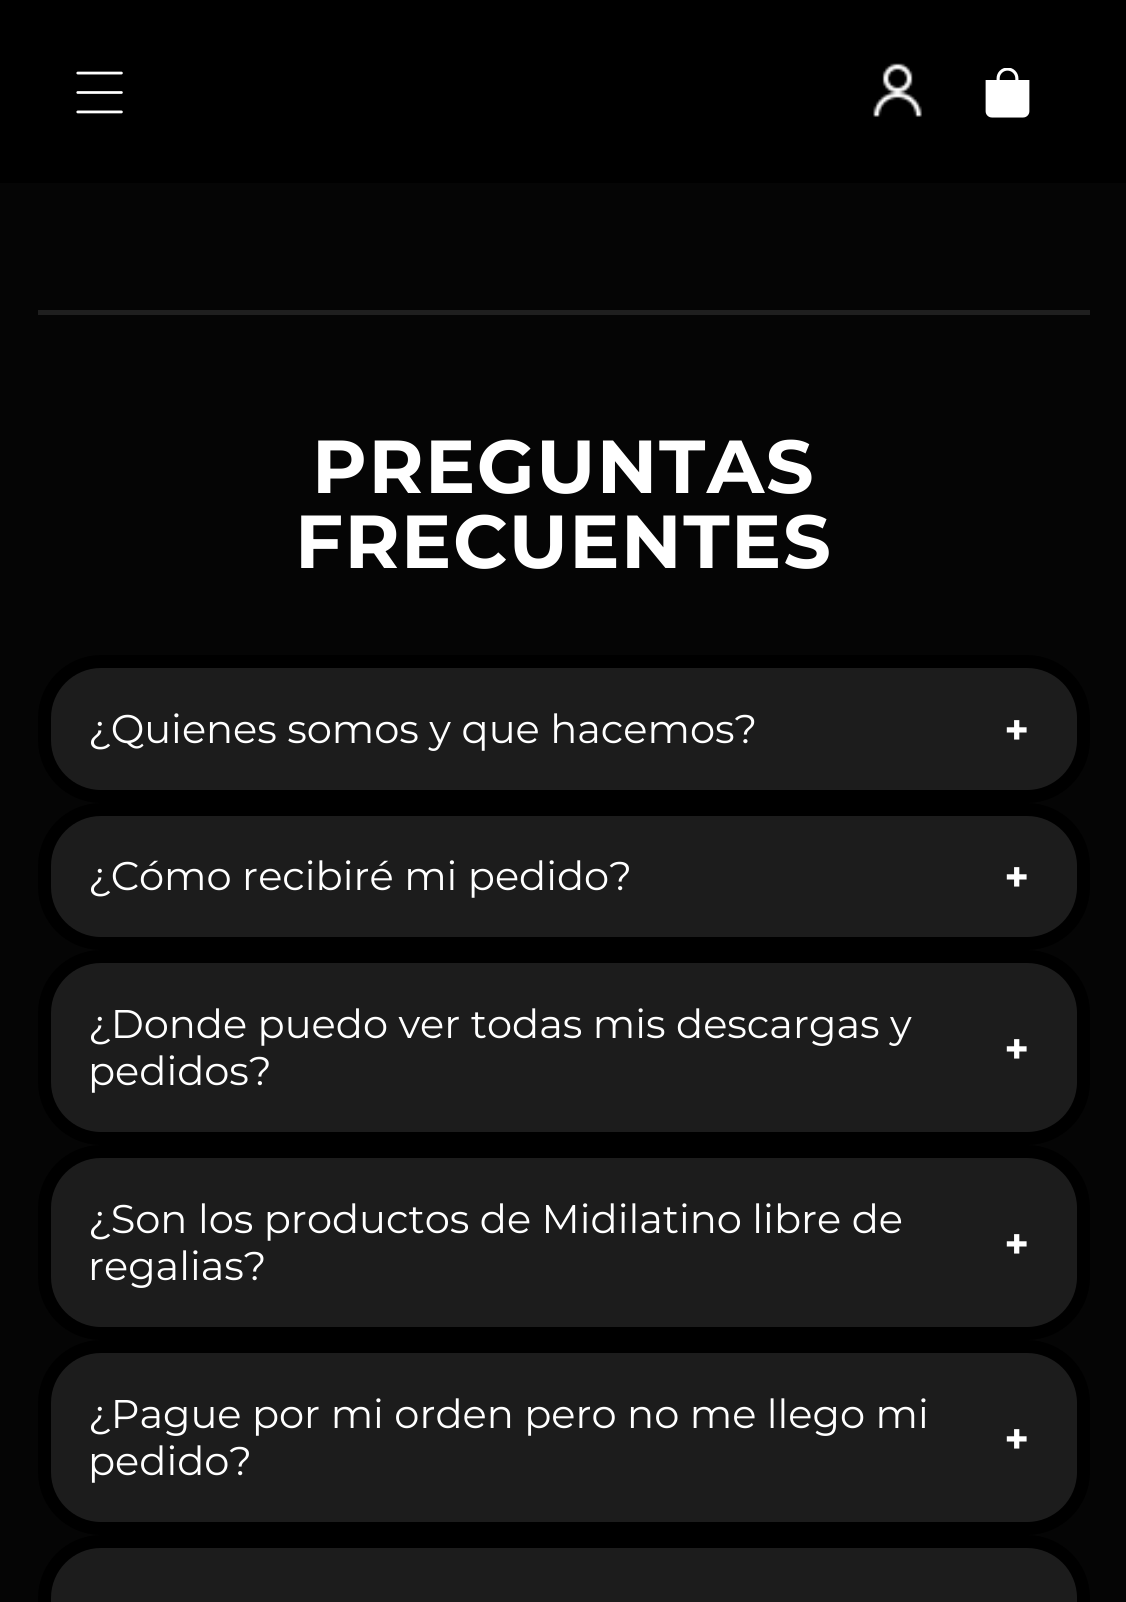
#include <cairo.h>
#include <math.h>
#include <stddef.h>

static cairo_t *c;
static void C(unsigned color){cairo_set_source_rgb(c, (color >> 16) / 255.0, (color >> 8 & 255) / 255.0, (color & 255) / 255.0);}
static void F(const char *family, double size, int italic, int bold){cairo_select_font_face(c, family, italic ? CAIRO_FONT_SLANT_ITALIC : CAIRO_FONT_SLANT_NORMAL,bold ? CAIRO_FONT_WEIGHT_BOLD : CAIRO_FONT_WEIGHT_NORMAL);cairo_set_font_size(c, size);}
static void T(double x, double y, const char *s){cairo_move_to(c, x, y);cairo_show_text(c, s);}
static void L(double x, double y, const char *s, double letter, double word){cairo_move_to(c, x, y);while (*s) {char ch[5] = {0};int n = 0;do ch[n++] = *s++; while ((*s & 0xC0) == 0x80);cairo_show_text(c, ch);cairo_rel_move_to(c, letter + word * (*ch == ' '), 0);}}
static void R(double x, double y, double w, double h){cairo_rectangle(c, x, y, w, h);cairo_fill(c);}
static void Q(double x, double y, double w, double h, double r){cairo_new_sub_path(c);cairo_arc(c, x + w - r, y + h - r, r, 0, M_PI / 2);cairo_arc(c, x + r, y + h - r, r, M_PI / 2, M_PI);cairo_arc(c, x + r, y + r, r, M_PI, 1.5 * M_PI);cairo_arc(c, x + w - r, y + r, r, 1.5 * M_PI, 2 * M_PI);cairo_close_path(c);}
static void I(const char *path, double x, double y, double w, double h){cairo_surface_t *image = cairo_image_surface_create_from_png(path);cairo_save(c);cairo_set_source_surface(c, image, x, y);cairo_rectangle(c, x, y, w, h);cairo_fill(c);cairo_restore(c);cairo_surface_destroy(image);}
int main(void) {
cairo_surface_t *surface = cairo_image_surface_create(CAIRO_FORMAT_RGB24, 1126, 1602);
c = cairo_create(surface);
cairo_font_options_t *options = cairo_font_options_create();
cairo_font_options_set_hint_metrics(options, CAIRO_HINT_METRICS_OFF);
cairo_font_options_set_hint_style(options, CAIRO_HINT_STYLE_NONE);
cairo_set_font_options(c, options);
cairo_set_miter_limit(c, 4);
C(0x000000);
cairo_paint(c);
I("1.png",76,71,47,43);
I("2.png",873,63,49,54);
I("3.png",985,68,45,50);
C(0x050505);
R(0,183,1126,1419);
C(0x1f1f1f);
R(38,310,1052,5);
F("Montserrat",75,0,1);
C(0xffffff);
L(312,493,"PREGUNTAS",1.5,0);
L(295,568,"FRECUENTES",1.5,0);
C(0x1c1c1c);
Q(44.5,661.5,1039,135,56.5);
cairo_fill_preserve(c);
C(0x000000);
cairo_set_line_width(c,13);
cairo_stroke(c);
F("Montserrat",40,0,0);
C(0xffffff);
T(88,743,"¿Quienes somos y que hacemos?");
F("Noto Sans Black",40,0,0);
T(1005,744,"+");
C(0x1c1c1c);
Q(44.5,809.5,1039,134,56.5);
cairo_fill_preserve(c);
C(0x000000);
cairo_stroke(c);
F("Montserrat",40,0,0);
C(0xffffff);
T(88,890,"¿Cómo recibiré mi pedido?");
F("Noto Sans Black",40,0,0);
T(1005,891,"+");
C(0x1c1c1c);
Q(44.5,956.5,1039,182,56.5);
cairo_fill_preserve(c);
C(0x000000);
cairo_stroke(c);
F("Montserrat",40,0,0);
C(0xffffff);
T(88,1038,"¿Donde puedo ver todas mis descargas y");
F("Noto Sans Black",40,0,0);
T(1005,1063,"+");
F("Montserrat",40,0,0);
T(88,1085,"pedidos?");
C(0x1c1c1c);
Q(44.5,1151.5,1039,182,56.5);
cairo_fill_preserve(c);
C(0x000000);
cairo_stroke(c);
C(0xffffff);
T(88,1233,"¿Son los productos de Midilatino libre de");
F("Noto Sans Black",40,0,0);
T(1005,1258,"+");
F("Montserrat",40,0,0);
T(88,1280,"regalias?");
C(0x1c1c1c);
Q(44.5,1346.5,1039,182,56.5);
cairo_fill_preserve(c);
C(0x000000);
cairo_stroke(c);
C(0xffffff);
T(88,1428,"¿Pague por mi orden pero no me llego mi");
F("Noto Sans Black",40,0,0);
T(1005,1453,"+");
F("Montserrat",40,0,0);
T(88,1475,"pedido?");
C(0x1c1c1c);
Q(44.5,1541.5,1039,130,56.5);
cairo_fill_preserve(c);
C(0x000000);
cairo_stroke(c);
cairo_surface_write_to_png(surface, "o.png");
cairo_font_options_destroy(options);
cairo_destroy(c);
cairo_surface_destroy(surface);
return 0;
}
